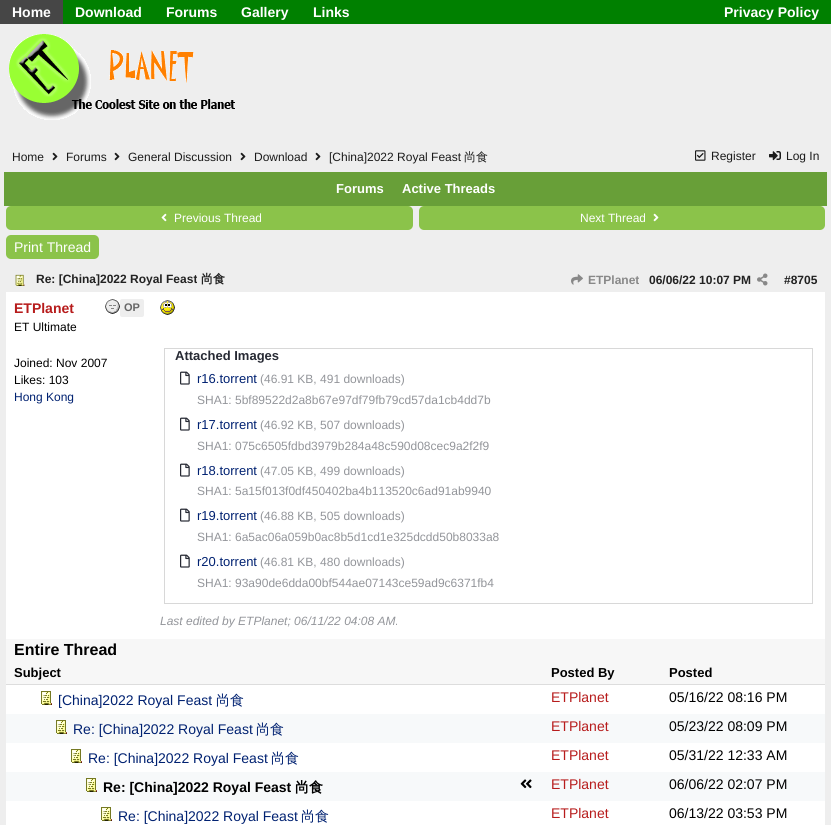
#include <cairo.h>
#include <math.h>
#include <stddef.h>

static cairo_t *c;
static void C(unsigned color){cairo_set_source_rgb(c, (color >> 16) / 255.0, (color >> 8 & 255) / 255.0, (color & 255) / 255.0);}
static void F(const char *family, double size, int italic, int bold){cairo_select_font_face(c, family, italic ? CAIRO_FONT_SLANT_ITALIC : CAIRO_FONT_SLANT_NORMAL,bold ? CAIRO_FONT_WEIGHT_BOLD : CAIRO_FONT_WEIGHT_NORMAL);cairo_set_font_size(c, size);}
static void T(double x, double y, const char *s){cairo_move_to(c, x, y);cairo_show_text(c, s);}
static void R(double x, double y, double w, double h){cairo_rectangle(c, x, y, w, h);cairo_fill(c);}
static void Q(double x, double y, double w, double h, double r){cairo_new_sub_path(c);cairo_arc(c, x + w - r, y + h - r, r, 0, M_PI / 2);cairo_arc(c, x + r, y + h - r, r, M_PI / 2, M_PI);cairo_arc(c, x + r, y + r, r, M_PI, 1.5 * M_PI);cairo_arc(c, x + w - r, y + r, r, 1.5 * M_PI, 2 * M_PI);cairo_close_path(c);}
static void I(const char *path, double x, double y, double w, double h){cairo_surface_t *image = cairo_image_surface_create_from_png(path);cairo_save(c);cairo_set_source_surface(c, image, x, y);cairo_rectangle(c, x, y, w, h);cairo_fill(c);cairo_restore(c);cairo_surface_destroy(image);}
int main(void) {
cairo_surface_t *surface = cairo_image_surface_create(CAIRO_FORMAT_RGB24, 831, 825);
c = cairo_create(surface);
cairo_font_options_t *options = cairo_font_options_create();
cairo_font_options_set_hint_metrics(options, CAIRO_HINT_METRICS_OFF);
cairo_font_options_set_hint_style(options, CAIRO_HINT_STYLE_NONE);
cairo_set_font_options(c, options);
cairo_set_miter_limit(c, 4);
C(0xeeeeee);
cairo_paint(c);
C(0x008000);
R(63,0,768,24);
C(0x464646);
R(0,0,63,24);
F("Liberation Sans",14,0,1);
C(0xffffff);
T(12,17,"Home");
T(75,17,"Download");
T(166,17,"Forums");
T(241,17,"Gallery");
T(313,17,"Links");
T(724,17,"Privacy Policy");
I("1.png",9,34,226,86);
F("Liberation Sans",12,0,0);
C(0x1b1b1b);
T(12,161,"Home");
I("2.png",52,152,6,9);
T(66,161,"Forums");
I("2.png",114,152,6,9);
T(128,161,"General Discussion");
I("2.png",240,152,6,9);
T(254,161,"Download");
I("2.png",315,152,6,9);
T(329,161,"[China]2022 Royal Feast");
F("WenQuanYi Zen Hei Medium",12,0,0);
T(464,161,"尚食");
I("3.png",695,150,11,11);
F("Liberation Sans",12,0,0);
T(711,160,"Register");
I("4.png",769,151,12,10);
T(786,160,"Log In");
C(0x689f38);
R(4,172,823,34);
F("Liberation Sans",13,0,1);
C(0xffffff);
T(336,193,"Forums");
T(402,193,"Active Threads");
C(0x8bc34a);
Q(6,206,407,24,5);
cairo_fill(c);
I("5.png",161,213,6,9);
F("Liberation Sans",12,0,0);
C(0xffffff);
T(174,222,"Previous Thread");
C(0x8bc34a);
Q(419,206,406,24,5);
cairo_fill(c);
C(0xffffff);
T(580,222,"Next Thread");
I("6.png",653,213,6,9);
C(0x8bc34a);
Q(6,235,93,24,5);
cairo_fill(c);
F("Liberation Sans",14,0,0);
C(0xffffff);
T(14,252,"Print Thread");
R(6,292,819,347);
I("7.png",15,274,10,12);
F("Liberation Sans",12,0,1);
C(0x222222);
T(36,283,"Re: [China]2022 Royal Feast");
F("WenQuanYi Zen Hei",12,0,1);
T(201,283,"尚食");
I("8.png",571,274,12,11);
F("Liberation Sans",12,0,1);
C(0x888888);
T(588,284,"ETPlanet");
C(0x222222);
T(649,284,"06/06/22 10:07 PM");
I("9.png",757,273,11,13);
T(784,284,"#8705");
F("Liberation Sans",14,0,1);
C(0xb71c1c);
T(14,313,"ETPlanet");
I("10.png",105,299,15,15);
C(0xeeeeee);
Q(120,299,24,18,2);
cairo_fill(c);
F("Liberation Sans",11,0,1);
C(0x666666);
T(124,311,"OP");
F("Liberation Sans",12,0,0);
C(0x000000);
T(14,331,"ET Ultimate");
T(14,367,"Joined: Nov 2007");
T(14,384,"Likes: 103");
C(0x002171);
T(14,401,"Hong Kong");
I("11.png",160,300,15,15);
cairo_rectangle(c,164.5,348.5,648,255);
C(0xd8d8d8);
cairo_set_line_width(c,1);
cairo_stroke(c);
F("Liberation Sans",13,0,1);
C(0x272a34);
T(175,360,"Attached Images");
I("12.png",180,371,10,14);
F("Liberation Sans",13,0,0);
C(0x002171);
T(197,383,"r16.torrent");
F("Liberation Sans",12,0,0);
C(0x93959a);
T(260,383,"(46.91 KB, 491 downloads)");
T(197,404,"SHA1: 5bf89522d2a8b67e97df79fb79cd57da1cb4dd7b");
I("12.png",180,417,10,14);
F("Liberation Sans",13,0,0);
C(0x002171);
T(197,429,"r17.torrent");
F("Liberation Sans",12,0,0);
C(0x93959a);
T(260,429,"(46.92 KB, 507 downloads)");
T(197,450,"SHA1: 075c6505fdbd3979b284a48c590d08cec9a2f2f9");
I("12.png",180,463,10,14);
F("Liberation Sans",13,0,0);
C(0x002171);
T(197,475,"r18.torrent");
F("Liberation Sans",12,0,0);
C(0x93959a);
T(260,475,"(47.05 KB, 499 downloads)");
T(197,495,"SHA1: 5a15f013f0df450402ba4b113520c6ad91ab9940");
I("12.png",180,508,10,14);
F("Liberation Sans",13,0,0);
C(0x002171);
T(197,520,"r19.torrent");
F("Liberation Sans",12,0,0);
C(0x93959a);
T(260,520,"(46.88 KB, 505 downloads)");
T(197,541,"SHA1: 6a5ac06a059b0ac8b5d1cd1e325dcdd50b8033a8");
I("12.png",180,554,10,14);
F("Liberation Sans",13,0,0);
C(0x002171);
T(197,566,"r20.torrent");
F("Liberation Sans",12,0,0);
C(0x93959a);
T(260,566,"(46.81 KB, 480 downloads)");
T(197,587,"SHA1: 93a90de6dda00bf544ae07143ce59ad9c6371fb4");
F("Liberation Sans",12,1,0);
T(160,625,"Last edited by ETPlanet; 06/11/22 04:08 AM.");
C(0xffffff);
R(6,685,819,140);
C(0xf7f7f7);
R(6,639,819,22);
F("Liberation Sans",16,0,1);
C(0x000000);
T(14,655,"Entire Thread");
C(0xf7f7f7);
R(6,661,819,23);
C(0xdddddd);
R(6,684,819,1);
F("Liberation Sans",13,0,1);
C(0x000000);
T(14,677,"Subject");
T(551,677,"Posted By");
T(669,677,"Posted");
I("13.png",41,691,11,14);
F("Liberation Sans",14,0,0);
C(0x002171);
T(58,705,"[China]2022 Royal Feast");
F("WenQuanYi Zen Hei Medium",14,0,0);
T(216,705,"尚食");
F("Liberation Sans",14,0,0);
C(0xb71c1c);
T(551,702,"ETPlanet");
C(0x000000);
T(669,702,"05/16/22 08:16 PM");
C(0xf7f9fa);
R(6,714,819,29);
I("14.png",56,720,11,14);
C(0x002171);
T(73,734,"Re: [China]2022 Royal Feast");
F("WenQuanYi Zen Hei Medium",14,0,0);
T(256,734,"尚食");
F("Liberation Sans",14,0,0);
C(0xb71c1c);
T(551,731,"ETPlanet");
C(0x000000);
T(669,731,"05/23/22 08:09 PM");
I("13.png",71,749,11,14);
C(0x002171);
T(88,763,"Re: [China]2022 Royal Feast");
F("WenQuanYi Zen Hei Medium",14,0,0);
T(271,763,"尚食");
F("Liberation Sans",14,0,0);
C(0xb71c1c);
T(551,760,"ETPlanet");
C(0x000000);
T(669,760,"05/31/22 12:33 AM");
C(0xf7f9fa);
R(6,772,819,29);
I("14.png",86,778,11,14);
F("Liberation Sans",14,0,1);
C(0x000000);
T(103,792,"Re: [China]2022 Royal Feast");
F("WenQuanYi Zen Hei",14,0,1);
T(295,792,"尚食");
I("15.png",520,779,12,10);
F("Liberation Sans",14,0,0);
C(0xb71c1c);
T(551,789,"ETPlanet");
C(0x000000);
T(669,789,"06/06/22 02:07 PM");
I("13.png",101,807,11,14);
C(0x002171);
T(118,821,"Re: [China]2022 Royal Feast");
F("WenQuanYi Zen Hei Medium",14,0,0);
T(301,821,"尚食");
F("Liberation Sans",14,0,0);
C(0xb71c1c);
T(551,818,"ETPlanet");
C(0x000000);
T(669,818,"06/13/22 03:53 PM");
cairo_surface_write_to_png(surface, "o.png");
cairo_font_options_destroy(options);
cairo_destroy(c);
cairo_surface_destroy(surface);
return 0;
}
